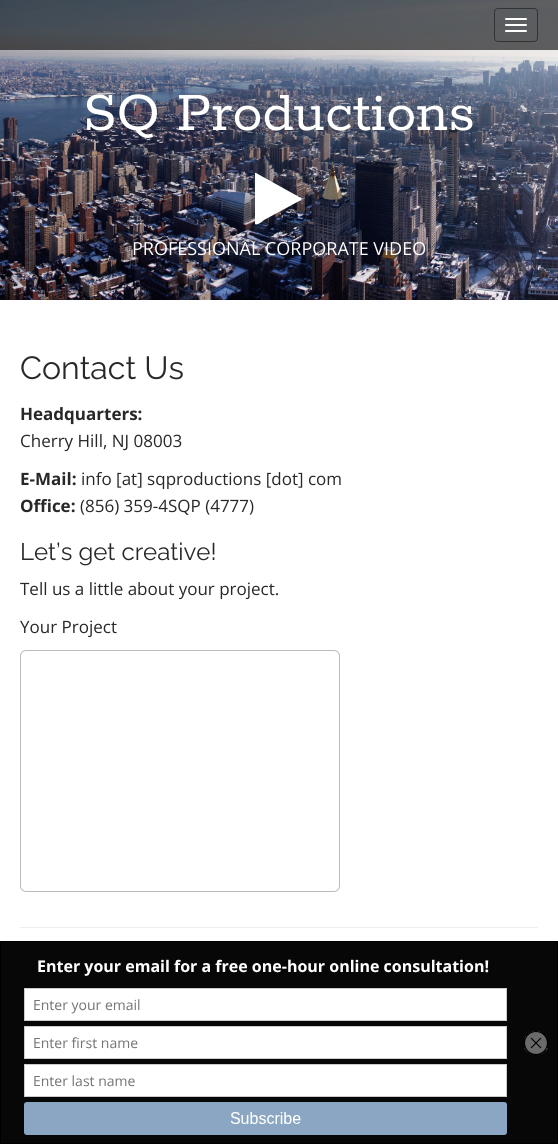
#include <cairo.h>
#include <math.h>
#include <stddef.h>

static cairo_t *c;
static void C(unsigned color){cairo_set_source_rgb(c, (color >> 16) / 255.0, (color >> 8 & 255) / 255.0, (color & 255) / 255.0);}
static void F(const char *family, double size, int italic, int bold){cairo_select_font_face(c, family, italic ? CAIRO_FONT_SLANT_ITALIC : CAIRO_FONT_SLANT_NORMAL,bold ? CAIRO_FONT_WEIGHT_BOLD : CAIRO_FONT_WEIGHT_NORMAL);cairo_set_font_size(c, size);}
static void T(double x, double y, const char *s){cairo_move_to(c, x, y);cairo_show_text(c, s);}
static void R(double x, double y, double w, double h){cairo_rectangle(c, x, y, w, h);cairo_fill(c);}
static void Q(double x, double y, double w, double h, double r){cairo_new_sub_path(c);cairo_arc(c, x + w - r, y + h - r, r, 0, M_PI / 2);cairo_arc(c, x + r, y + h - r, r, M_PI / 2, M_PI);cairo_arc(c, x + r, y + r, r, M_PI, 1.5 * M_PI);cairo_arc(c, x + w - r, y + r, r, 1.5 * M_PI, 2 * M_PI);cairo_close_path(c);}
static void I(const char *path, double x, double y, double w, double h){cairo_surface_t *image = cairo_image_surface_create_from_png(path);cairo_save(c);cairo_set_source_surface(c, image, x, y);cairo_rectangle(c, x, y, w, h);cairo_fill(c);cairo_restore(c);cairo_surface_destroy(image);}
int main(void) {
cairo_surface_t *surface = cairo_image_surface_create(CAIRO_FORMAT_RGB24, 558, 1144);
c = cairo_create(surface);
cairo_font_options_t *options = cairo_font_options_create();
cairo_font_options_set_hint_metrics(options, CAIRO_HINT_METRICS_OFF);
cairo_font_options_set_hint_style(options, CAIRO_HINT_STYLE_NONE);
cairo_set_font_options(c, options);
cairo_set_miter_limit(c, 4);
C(0xffffff);
cairo_paint(c);
I("1.png",0,0,558,300);
cairo_set_source_rgba(c,0,0,0,0.6);
R(0,0,558,50);
Q(494.5,8.5,43,33,3.5);
C(0x333333);
cairo_set_line_width(c,1);
cairo_stroke(c);
C(0xffffff);
Q(505,18,22,2,1);
cairo_fill(c);
Q(505,24,22,2,1);
cairo_fill(c);
Q(505,30,22,2,1);
cairo_fill(c);
F("Rokkitt SemiBold",60,0,0);
T(83,130,"SQ Productions");
cairo_new_path(c);
cairo_move_to(c,301,200);
cairo_line_to(c,264,220);
cairo_curve_to(c,263,221,257,226,255,224);
cairo_line_to(c,255,173);
cairo_line_to(c,256,173);
cairo_line_to(c,301,198);
cairo_line_to(c,302,198);
cairo_close_path(c);
cairo_fill(c);
F("Open Sans",18,0,0);
T(132,255,"PROFESSIONAL CORPORATE VIDEO");
F("Raleway Thin",32,0,0);
C(0x282828);
T(20,379,"Contact Us");
F("Open Sans",17,0,1);
T(20,420,"Headquarters:");
F("Open Sans",17,0,0);
T(20,447,"Cherry Hill, NJ 08003");
F("Open Sans",17,0,1);
T(20,485,"E-Mail:");
F("Open Sans",17,0,0);
T(81,485,"info [at] sqproductions [dot] com");
F("Open Sans",17,0,1);
T(20,512,"Office:");
F("Open Sans",17,0,0);
T(80,512,"(856) 359-4SQP (4777)");
F("Raleway Thin",24,0,0);
T(20,560,"Let’s get creative!");
F("Open Sans",17,0,0);
T(20,595,"Tell us a little about your project.");
T(20,633,"Your Project");
Q(20.5,650.5,319,241,5.5);
C(0xbbbbbb);
cairo_stroke(c);
C(0xeeeeee);
R(20,927,518,1);
I("2.png",0,941,558,203);
cairo_surface_write_to_png(surface, "o.png");
cairo_font_options_destroy(options);
cairo_destroy(c);
cairo_surface_destroy(surface);
return 0;
}
